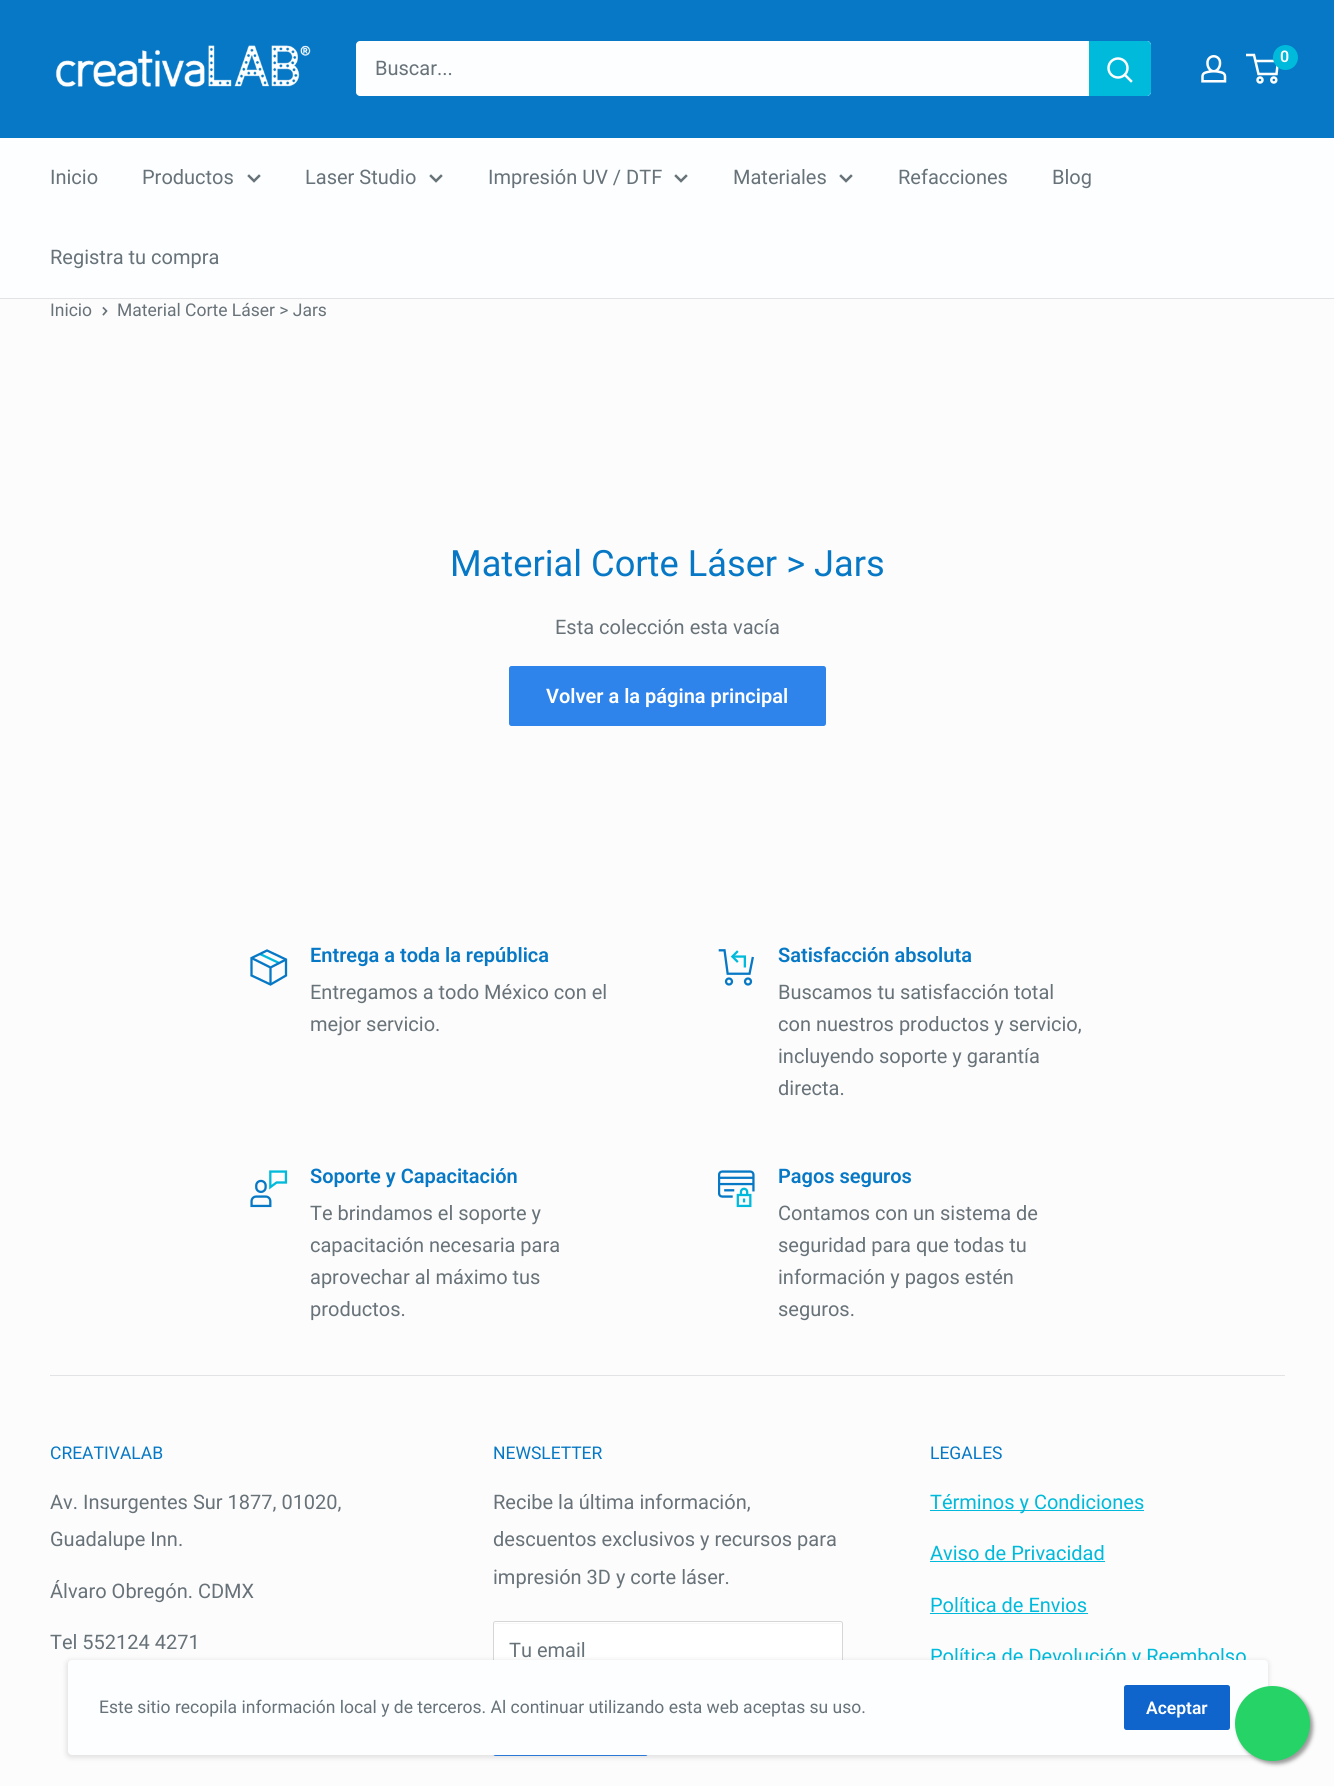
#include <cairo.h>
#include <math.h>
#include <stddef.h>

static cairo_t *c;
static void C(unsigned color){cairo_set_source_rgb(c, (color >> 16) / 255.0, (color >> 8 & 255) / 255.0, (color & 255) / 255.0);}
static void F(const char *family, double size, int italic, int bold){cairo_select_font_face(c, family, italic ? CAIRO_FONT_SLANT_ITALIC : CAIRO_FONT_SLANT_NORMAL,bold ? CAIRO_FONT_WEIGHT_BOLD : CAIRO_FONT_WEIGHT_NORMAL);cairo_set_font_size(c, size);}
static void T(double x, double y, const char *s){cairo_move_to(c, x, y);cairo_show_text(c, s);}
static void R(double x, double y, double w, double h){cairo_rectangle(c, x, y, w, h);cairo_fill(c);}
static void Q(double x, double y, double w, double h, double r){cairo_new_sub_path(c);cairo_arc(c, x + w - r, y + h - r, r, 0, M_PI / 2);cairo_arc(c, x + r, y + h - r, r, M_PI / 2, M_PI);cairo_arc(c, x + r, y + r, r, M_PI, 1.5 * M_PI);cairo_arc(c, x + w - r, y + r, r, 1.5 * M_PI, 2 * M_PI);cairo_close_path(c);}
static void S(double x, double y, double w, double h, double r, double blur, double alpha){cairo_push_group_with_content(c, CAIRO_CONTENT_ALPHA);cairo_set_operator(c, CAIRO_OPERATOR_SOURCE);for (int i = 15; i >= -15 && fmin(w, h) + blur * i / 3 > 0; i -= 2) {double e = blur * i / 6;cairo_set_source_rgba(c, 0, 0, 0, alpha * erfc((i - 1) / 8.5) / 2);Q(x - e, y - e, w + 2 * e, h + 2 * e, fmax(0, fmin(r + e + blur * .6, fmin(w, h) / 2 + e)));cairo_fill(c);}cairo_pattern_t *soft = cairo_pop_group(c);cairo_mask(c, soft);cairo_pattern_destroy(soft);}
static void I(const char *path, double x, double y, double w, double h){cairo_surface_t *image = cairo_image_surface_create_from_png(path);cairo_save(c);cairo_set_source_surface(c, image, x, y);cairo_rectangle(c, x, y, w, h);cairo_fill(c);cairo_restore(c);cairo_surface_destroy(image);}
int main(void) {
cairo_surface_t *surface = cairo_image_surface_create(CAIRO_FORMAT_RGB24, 1334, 1786);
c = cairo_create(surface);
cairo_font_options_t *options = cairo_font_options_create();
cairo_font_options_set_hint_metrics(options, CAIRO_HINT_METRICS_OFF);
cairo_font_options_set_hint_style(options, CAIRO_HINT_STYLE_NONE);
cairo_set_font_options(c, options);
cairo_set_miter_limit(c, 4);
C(0xfdfcfc);
cairo_paint(c);
C(0x0678c5);
R(0,0,1334,138);
I("1.png",55,45,256,42);
I("2.png",1201,55,26,28);
cairo_arc(c,1260,80,2.5,0,2 * M_PI);
C(0xffffff);
cairo_set_line_width(c,2.5);
cairo_stroke(c);
cairo_arc(c,1273.8,80,2.5,0,2 * M_PI);
cairo_stroke(c);
cairo_new_path(c);
cairo_move_to(c,1255.5,61);
cairo_line_to(c,1278,61);
cairo_line_to(c,1276.5,74);
cairo_line_to(c,1258.5,74);
cairo_line_to(c,1254,55);
cairo_line_to(c,1246,55);
cairo_stroke(c);
C(0x00badb);
cairo_arc(c,1285.5,57.5,12.5,0,2 * M_PI);
cairo_fill(c);
F("Roboto SemiBold",16,0,0);
C(0xffffff);
T(1280,62,"0");
C(0xfcfeff);
Q(356,41,795,55,4);
cairo_fill(c);
F("Roboto",20,0,0);
C(0x677279);
T(375,75,"Buscar...");
C(0x00badb);
cairo_new_path(c);
cairo_move_to(c,1089,41);
cairo_line_to(c,1147,41);
cairo_curve_to(c,1149,41,1151,43,1151,45);
cairo_line_to(c,1151,92);
cairo_curve_to(c,1151,94,1149,96,1147,96);
cairo_line_to(c,1089,96);
cairo_close_path(c);
cairo_fill(c);
cairo_new_path(c);
cairo_move_to(c,1131,81);
cairo_line_to(c,1125,75);
C(0xfcfeff);
cairo_set_line_cap(c,CAIRO_LINE_CAP_SQUARE);
cairo_stroke(c);
cairo_arc(c,1118,68,9.5,0,2 * M_PI);
cairo_set_line_cap(c,CAIRO_LINE_CAP_BUTT);
cairo_stroke(c);
R(0,138,1334,160);
C(0xe1e3e4);
R(0,298,1334,1);
C(0x677279);
T(50,184,"Inicio");
T(142,184,"Productos");
cairo_new_path(c);
cairo_move_to(c,259,176);
cairo_line_to(c,254,181);
cairo_line_to(c,249,176);
cairo_set_line_cap(c,CAIRO_LINE_CAP_SQUARE);
cairo_stroke(c);
T(305,184,"Laser Studio");
cairo_new_path(c);
cairo_move_to(c,441,176);
cairo_line_to(c,436,181);
cairo_line_to(c,431,176);
cairo_stroke(c);
T(488,184,"Impresión UV / DTF");
cairo_new_path(c);
cairo_move_to(c,686,176);
cairo_line_to(c,681,181);
cairo_line_to(c,676,176);
cairo_stroke(c);
T(733,184,"Materiales");
cairo_new_path(c);
cairo_move_to(c,851,176);
cairo_line_to(c,846,181);
cairo_line_to(c,841,176);
cairo_stroke(c);
T(898,184,"Refacciones");
T(1052,184,"Blog");
T(50,264,"Registra tu compra");
F("Roboto",17.5,0,0);
T(50,316,"Inicio");
cairo_new_path(c);
cairo_move_to(c,103.5,308);
cairo_line_to(c,106.5,311);
cairo_line_to(c,103.5,314.5);
cairo_set_line_width(c,1.7);
cairo_stroke(c);
T(117,316,"Material Corte Láser > Jars");
F("Roboto",36.25,0,0);
C(0x0678c5);
T(450,576,"Material Corte Láser > Jars");
F("Roboto",20,0,0);
C(0x677279);
T(555,634,"Esta colección esta vacía");
C(0x2f84eb);
Q(509,666,317,60,2.5);
cairo_fill(c);
F("Roboto SemiBold",20,0,0);
C(0xffffff);
T(546,703,"Volver a la página principal");
cairo_new_path(c);
cairo_move_to(c,260,954);
cairo_line_to(c,279,963);
C(0x00badb);
cairo_set_line_width(c,2.3);
cairo_set_line_cap(c,CAIRO_LINE_CAP_BUTT);
cairo_stroke(c);
cairo_new_path(c);
cairo_move_to(c,286,959.5);
cairo_line_to(c,270.5,967.5);
cairo_line_to(c,251.5,958);
cairo_move_to(c,270.5,967.5);
cairo_line_to(c,270.5,984.5);
C(0x0678c5);
cairo_stroke(c);
cairo_new_path(c);
cairo_move_to(c,286,959.5);
cairo_line_to(c,286,975.5);
cairo_line_to(c,270.5,984.5);
cairo_line_to(c,251.5,975.5);
cairo_line_to(c,251.5,958);
cairo_line_to(c,267,950.5);
cairo_close_path(c);
cairo_set_line_cap(c,CAIRO_LINE_CAP_SQUARE);
cairo_stroke(c);
T(310,962,"Entrega a toda la república");
F("Roboto",20,0,0);
C(0x677279);
T(310,999,"Entregamos a todo México con el");
T(310,1031,"mejor servicio.");
I("3.png",718,949,36,37);
F("Roboto SemiBold",20,0,0);
C(0x0678c5);
T(778,962,"Satisfacción absoluta");
F("Roboto",20,0,0);
C(0x677279);
T(778,999,"Buscamos tu satisfacción total");
T(778,1031,"con nuestros productos y servicio,");
T(778,1063,"incluyendo soporte y garantía");
T(778,1095,"directa.");
I("4.png",250,1170,38,38);
F("Roboto SemiBold",20,0,0);
C(0x0678c5);
T(310,1183,"Soporte y Capacitación");
F("Roboto",20,0,0);
C(0x677279);
T(310,1220,"Te brindamos el soporte y");
T(310,1252,"capacitación necesaria para");
T(310,1284,"aprovechar al máximo tus");
T(310,1316,"productos.");
I("5.png",718,1170,37,38);
F("Roboto SemiBold",20,0,0);
C(0x0678c5);
T(778,1183,"Pagos seguros");
F("Roboto",20,0,0);
C(0x677279);
T(778,1220,"Contamos con un sistema de");
T(778,1252,"seguridad para que todas tu");
T(778,1284,"información y pagos estén");
T(778,1316,"seguros.");
C(0xe1e3e4);
R(50,1375,1235,1);
F("Roboto",17.5,0,0);
C(0x0678c5);
T(50,1459,"CREATIVALAB");
F("Roboto",20,0,0);
C(0x677279);
T(50,1509,"Av. Insurgentes Sur 1877, 01020,");
T(50,1546,"Guadalupe Inn.");
T(50,1598,"Álvaro Obregón. CDMX");
T(50,1649,"Tel 552124 4271");
F("Roboto",17.5,0,0);
C(0x0678c5);
T(493,1459,"NEWSLETTER");
F("Roboto",20,0,0);
C(0x677279);
T(493,1509,"Recibe la última información,");
T(493,1546,"descuentos exclusivos y recursos para");
T(493,1584,"impresión 3D y corte láser.");
C(0xffffff);
Q(493,1621,350,60,2.5);
cairo_fill(c);
C(0xf8f8f8);
cairo_new_path(c);
cairo_move_to(c,495,1624);
cairo_line_to(c,840,1624);
cairo_curve_to(c,841,1624,841,1624,841,1625);
cairo_line_to(c,841,1623);
cairo_line_to(c,668,1623);
cairo_line_to(c,495,1623);
cairo_line_to(c,494,1624);
cairo_line_to(c,494,1625);
cairo_curve_to(c,494,1624,494,1624,495,1624);
cairo_close_path(c);
cairo_fill(c);
Q(493.5,1621.5,349,59,2);
C(0xd4d6d8);
cairo_set_line_width(c,1);
cairo_set_line_cap(c,CAIRO_LINE_CAP_BUTT);
cairo_stroke(c);
C(0x677279);
T(509,1657,"Tu email");
C(0x2f84eb);
Q(493,1696,155,60,2.5);
cairo_fill(c);
F("Roboto",17.5,0,0);
C(0x0678c5);
T(930,1459,"LEGALES");
C(0x00badb);
R(930,1510,214,1);
F("Roboto",20,0,0);
T(930,1509,"Términos y Condiciones");
T(930,1560,"Aviso de Privacidad");
R(930,1561,175,1);
T(930,1612,"Política de Envios");
R(930,1613,158,1);
T(930,1663,"Política de Devolución y Reembolso");
C(0x000000);
S(66,1660,1203,98,5,2.5,.1);
C(0xfcfeff);
Q(68,1660,1200,95,4);
cairo_fill(c);
F("Roboto",17.5,0,0);
C(0x677279);
T(99,1713,"Este sitio recopila información local y de terceros. Al continuar utilizando esta web aceptas su uso.");
C(0x0f65cc);
Q(1124,1685,106,45,2.5);
cairo_fill(c);
F("Roboto SemiBold",17.5,0,0);
C(0xffffff);
T(1146,1714,"Aceptar");
C(0x999999);
S(1238,1689,75,75,37.5,2,1);
C(0x25d366);
cairo_arc(c,1272.5,1723.5,37.5,0,2 * M_PI);
cairo_fill(c);
cairo_surface_write_to_png(surface, "o.png");
cairo_font_options_destroy(options);
cairo_destroy(c);
cairo_surface_destroy(surface);
return 0;
}
